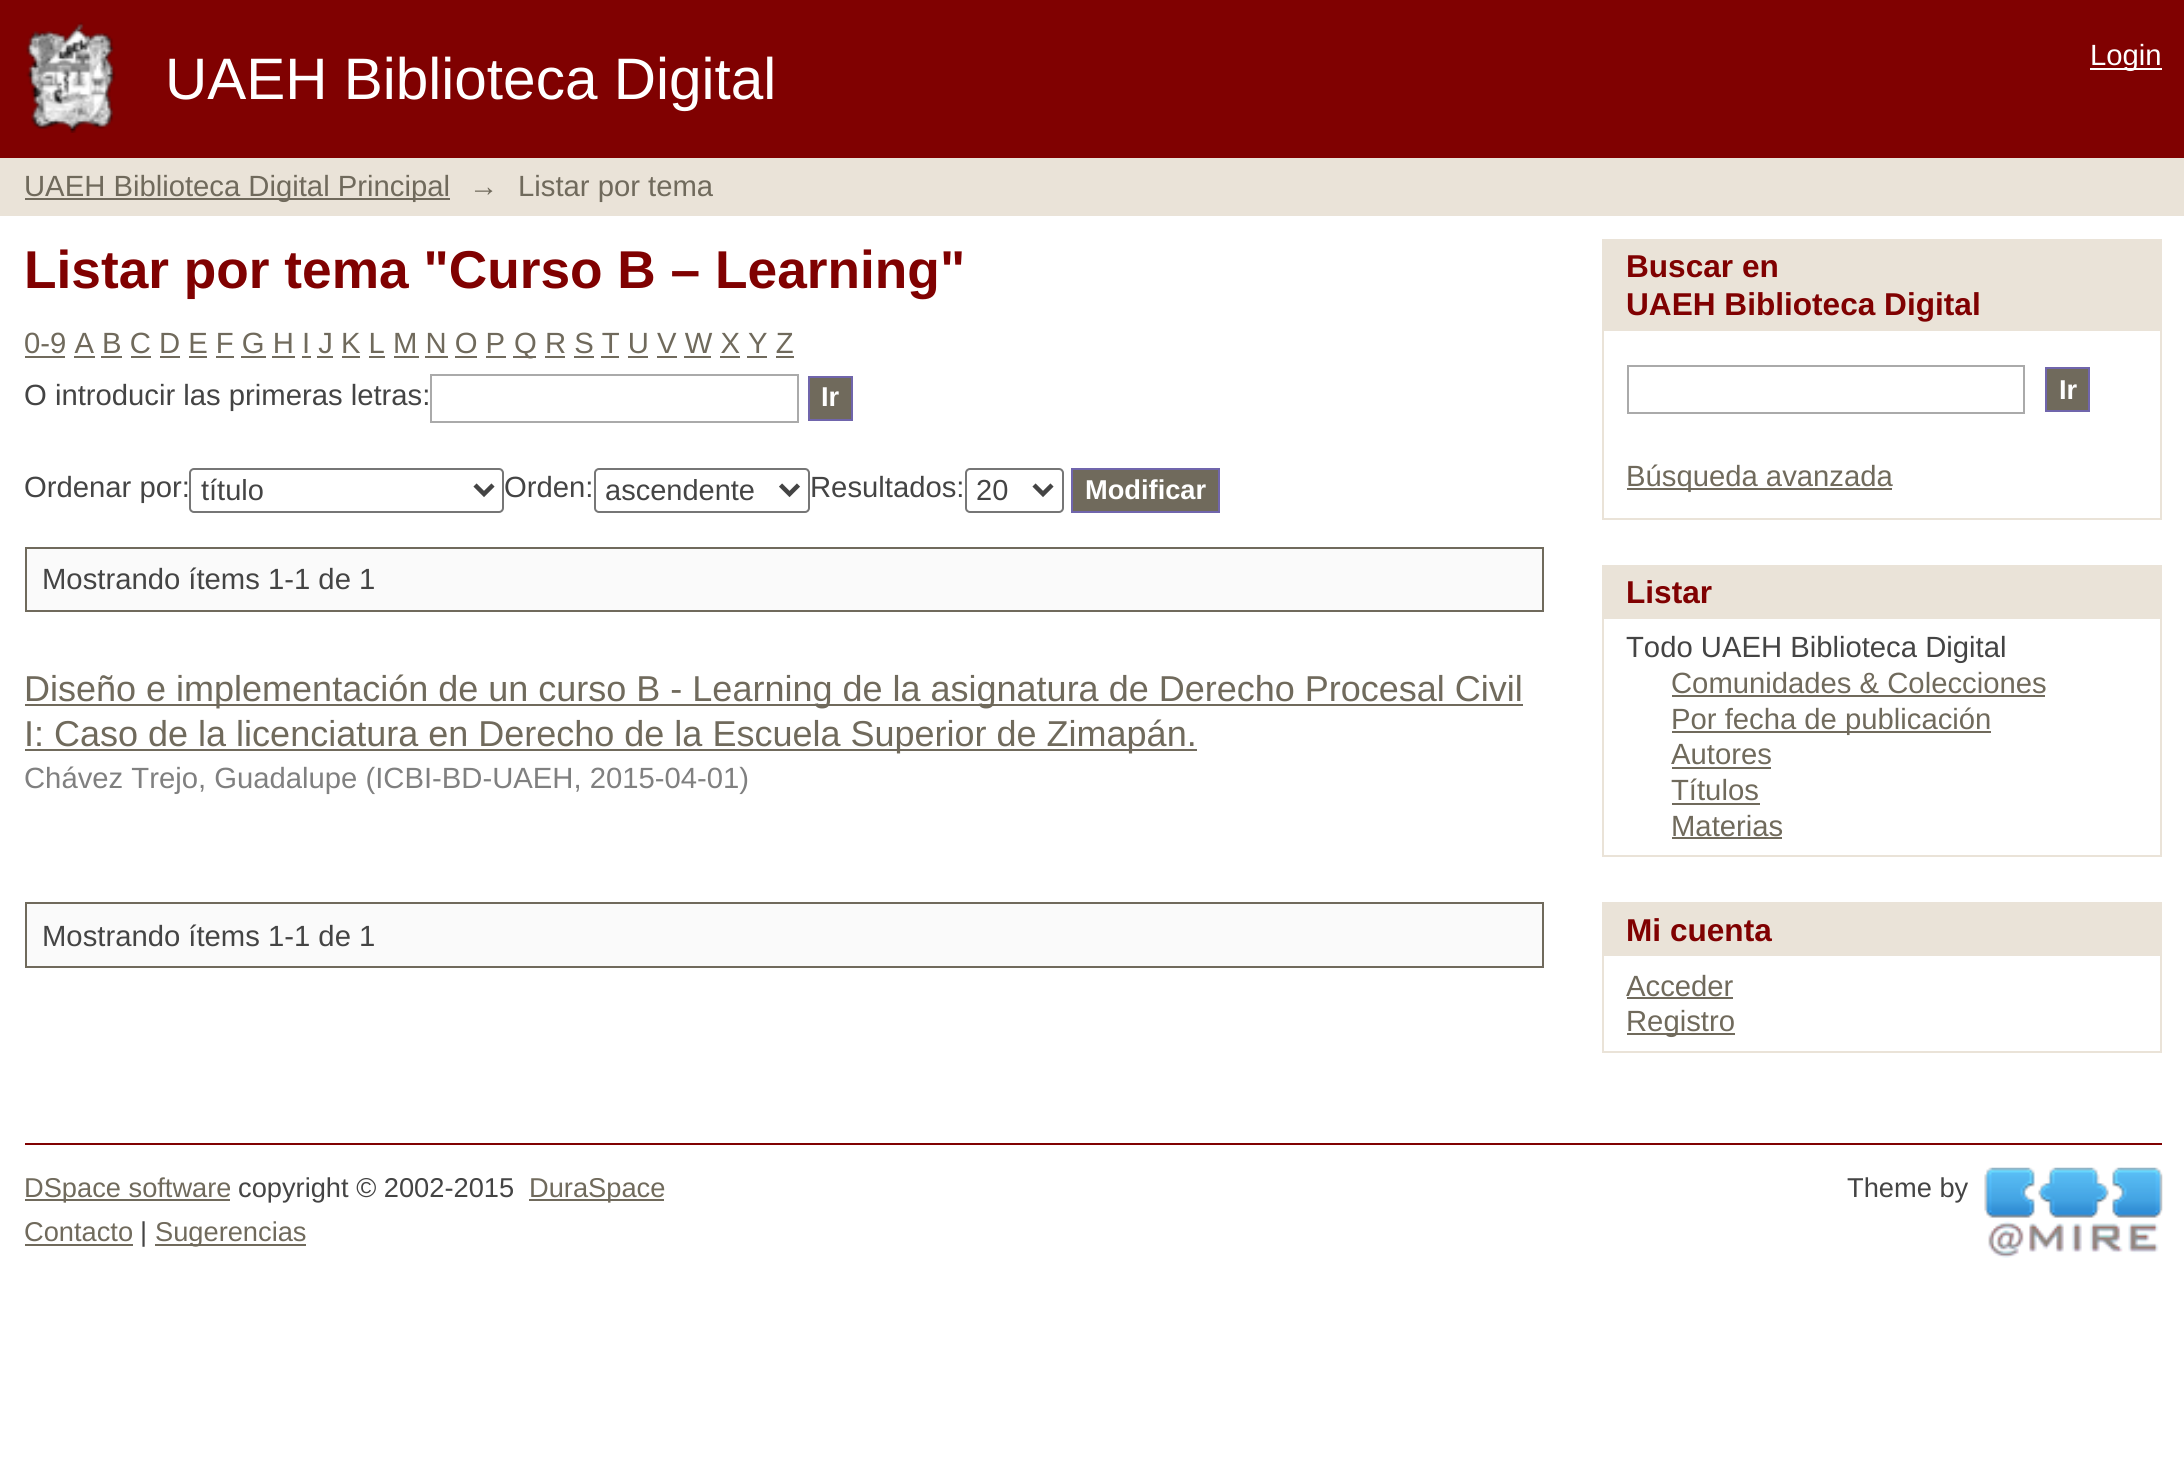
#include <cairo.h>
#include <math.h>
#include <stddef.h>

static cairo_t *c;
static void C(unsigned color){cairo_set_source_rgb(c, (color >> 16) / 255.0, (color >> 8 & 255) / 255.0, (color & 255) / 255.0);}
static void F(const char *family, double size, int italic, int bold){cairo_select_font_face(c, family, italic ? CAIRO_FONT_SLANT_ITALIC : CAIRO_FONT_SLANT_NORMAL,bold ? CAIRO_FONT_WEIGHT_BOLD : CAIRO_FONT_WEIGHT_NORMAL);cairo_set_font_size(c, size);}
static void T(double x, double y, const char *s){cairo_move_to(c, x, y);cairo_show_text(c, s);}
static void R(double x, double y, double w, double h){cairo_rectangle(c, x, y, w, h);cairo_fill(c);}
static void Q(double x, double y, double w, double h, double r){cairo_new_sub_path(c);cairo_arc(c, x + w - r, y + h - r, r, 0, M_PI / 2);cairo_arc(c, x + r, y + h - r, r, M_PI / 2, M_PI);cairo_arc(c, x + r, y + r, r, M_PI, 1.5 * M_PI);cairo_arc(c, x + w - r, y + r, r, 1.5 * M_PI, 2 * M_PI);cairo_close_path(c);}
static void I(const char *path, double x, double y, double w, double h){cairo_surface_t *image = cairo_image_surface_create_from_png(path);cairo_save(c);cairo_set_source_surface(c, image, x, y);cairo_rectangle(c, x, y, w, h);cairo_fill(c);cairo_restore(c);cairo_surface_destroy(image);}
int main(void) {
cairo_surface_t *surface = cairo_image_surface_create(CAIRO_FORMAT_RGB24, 2184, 1465);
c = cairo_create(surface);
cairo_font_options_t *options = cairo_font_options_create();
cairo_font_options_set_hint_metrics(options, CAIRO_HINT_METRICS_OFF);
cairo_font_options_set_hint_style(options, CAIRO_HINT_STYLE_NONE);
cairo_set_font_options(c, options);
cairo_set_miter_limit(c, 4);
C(0xffffff);
cairo_paint(c);
C(0x800101);
R(0,0,2184,158);
I("1.png",26,22,90,111);
F("Liberation Sans",58.5,0,0);
C(0xffffff);
T(165,99,"UAEH Biblioteca Digital");
R(2090,68,72,2);
F("Liberation Sans",29.25,0,0);
T(2090,65,"Login");
C(0xeae3d8);
R(0,158,2184,58);
C(0x706a5c);
R(25,198,425,2);
T(24,196,"UAEH Biblioteca Digital Principal");
T(469,196,"→");
T(518,196,"Listar por tema");
F("Liberation Sans",53.25,0,1);
C(0x800101);
T(24,288,"Listar por tema \"Curso B – Learning\"");
F("Liberation Sans",29.25,0,0);
C(0x706a5c);
T(24,353,"0-9 A B C D E F G H I J K L M N O P");
R(25,356,40,2);
R(513,356,23,2);
T(514,353,"Q R S T U V W X Y Z");
R(74,356,21,2);
R(101,356,21,2);
R(131,356,20,2);
R(160,356,20,2);
R(189,356,18,2);
R(216,356,18,2);
R(241,356,25,2);
R(272,356,23,2);
R(302,356,9,2);
R(317,356,16,2);
R(342,356,18,2);
R(369,356,16,2);
R(394,356,25,2);
R(425,356,23,2);
R(455,356,22,2);
R(486,356,20,2);
R(545,356,20,2);
R(574,356,20,2);
R(601,356,18,2);
R(628,356,20,2);
R(657,356,20,2);
R(684,356,27,2);
R(720,356,20,2);
R(747,356,20,2);
R(776,356,18,2);
C(0x444444);
T(24,405,"O introducir las primeras letras:");
cairo_rectangle(c,431,375,367,47);
C(0xaaaaaa);
cairo_stroke(c);
C(0x706a5c);
cairo_rectangle(c,809,377,43,43);
cairo_fill_preserve(c);
C(0x7065ac);
cairo_stroke(c);
F("Liberation Sans",27.25,0,1);
C(0xffffff);
T(821,406,"Ir");
F("Liberation Sans",29.25,0,0);
C(0x444444);
T(24,497,"Ordenar por:");
Q(190,469,313,43,4);
C(0x767676);
cairo_stroke(c);
cairo_new_path(c);
cairo_move_to(c,475,485);
cairo_line_to(c,484,494);
cairo_line_to(c,493,485);
C(0x444444);
cairo_set_line_width(c,4.5);
cairo_stroke(c);
F("Liberation Sans",29,0,0);
T(201,500,"título");
F("Liberation Sans",29.25,0,0);
T(504,497,"Orden:");
Q(595,469,214,43,4);
C(0x767676);
cairo_set_line_width(c,2);
cairo_stroke(c);
cairo_new_path(c);
cairo_move_to(c,780.5,485);
cairo_line_to(c,789.5,494);
cairo_line_to(c,798.5,485);
C(0x444444);
cairo_set_line_width(c,4.5);
cairo_stroke(c);
F("Liberation Sans",29,0,0);
T(605,500,"ascendente");
F("Liberation Sans",29.25,0,0);
T(810,497,"Resultados:");
Q(966,469,97,43,4);
C(0x767676);
cairo_set_line_width(c,2);
cairo_stroke(c);
cairo_new_path(c);
cairo_move_to(c,1034,485);
cairo_line_to(c,1043,494);
cairo_line_to(c,1052,485);
C(0x444444);
cairo_set_line_width(c,4.5);
cairo_stroke(c);
F("Liberation Sans",29,0,0);
T(976,500,"20");
C(0x706a5c);
cairo_rectangle(c,1072,469,147,43);
cairo_fill_preserve(c);
C(0x7065ac);
cairo_set_line_width(c,2);
cairo_stroke(c);
F("Liberation Sans",27.25,0,1);
C(0xffffff);
T(1085,499,"Modificar");
C(0xfafafa);
cairo_rectangle(c,26,548,1517,63);
cairo_fill_preserve(c);
C(0x706a5c);
cairo_stroke(c);
F("Liberation Sans",29.25,0,0);
C(0x444444);
T(42,589,"Mostrando ítems 1-1 de 1");
C(0x706a5c);
R(25,704,1498,2);
F("Liberation Sans",36,0,0);
T(24,701,"Diseño e implementación de un curso B - Learning de la asignatura de Derecho Procesal Civil");
R(25,749,1172,2);
T(24,746,"I: Caso de la licenciatura en Derecho de la Escuela Superior de Zimapán.");
F("Liberation Sans",29.25,0,0);
C(0x808080);
T(24,788,"Chávez Trejo, Guadalupe (ICBI-BD-UAEH, 2015-04-01)");
C(0xfafafa);
cairo_rectangle(c,26,903,1517,64);
cairo_fill_preserve(c);
C(0x706a5c);
cairo_stroke(c);
C(0x444444);
T(42,946,"Mostrando ítems 1-1 de 1");
C(0xeae3d8);
R(1602,239,560,92);
F("Liberation Sans",31.6,0,1);
C(0x800101);
T(1626,277,"Buscar en");
T(1626,315,"UAEH Biblioteca Digital");
C(0xeae3d8);
R(2160,331,2,189);
R(1602,518,560,2);
R(1602,331,2,189);
cairo_rectangle(c,1628,366,396,47);
C(0xaaaaaa);
cairo_stroke(c);
C(0x706a5c);
cairo_rectangle(c,2046,368,43,43);
cairo_fill_preserve(c);
C(0x7065ac);
cairo_stroke(c);
F("Liberation Sans",27.25,0,1);
C(0xffffff);
T(2059,399,"Ir");
C(0x706a5c);
R(1627,488,265,2);
F("Liberation Sans",29.25,0,0);
T(1626,486,"Búsqueda avanzada");
C(0xeae3d8);
R(1602,565,560,54);
F("Liberation Sans",31.6,0,1);
C(0x800101);
T(1626,603,"Listar");
C(0xeae3d8);
R(2160,619,2,238);
R(1602,855,560,2);
R(1602,619,2,238);
F("Liberation Sans",29.25,0,0);
C(0x444444);
T(1626,657,"Todo UAEH Biblioteca Digital");
C(0x706a5c);
T(1671,693,"Comunidades & Colecciones");
R(1672,695,373,2);
R(1672,731,319,2);
T(1671,729,"Por fecha de publicación");
T(1671,764,"Autores");
R(1672,767,99,2);
T(1671,800,"Títulos");
R(1672,803,88,2);
T(1671,836,"Materias");
R(1672,837,110,2);
C(0xeae3d8);
R(1602,902,560,54);
F("Liberation Sans",31.6,0,1);
C(0x800101);
T(1626,941,"Mi cuenta");
C(0xeae3d8);
R(2160,956,2,97);
R(1602,1051,560,2);
R(1602,956,2,97);
F("Liberation Sans",29.25,0,0);
C(0x706a5c);
T(1626,996,"Acceder");
R(1627,997,106,2);
R(1627,1033,108,2);
T(1626,1031,"Registro");
C(0x800101);
R(25,1143,2137,2);
C(0x706a5c);
R(25,1199,205,2);
F("Liberation Sans",27.25,0,0);
T(24,1197,"DSpace software");
C(0x444444);
T(238,1197,"copyright © 2002-2015");
C(0x706a5c);
R(529,1199,135,2);
T(529,1197,"DuraSpace");
C(0x444444);
T(1847,1197,"Theme by");
I("2.png",1984,1167,179,91);
C(0x706a5c);
T(24,1241,"Contacto");
R(25,1244,108,2);
C(0x444444);
T(140,1241,"|");
C(0x706a5c);
R(155,1244,151,2);
T(155,1241,"Sugerencias");
cairo_surface_write_to_png(surface, "o.png");
cairo_font_options_destroy(options);
cairo_destroy(c);
cairo_surface_destroy(surface);
return 0;
}
